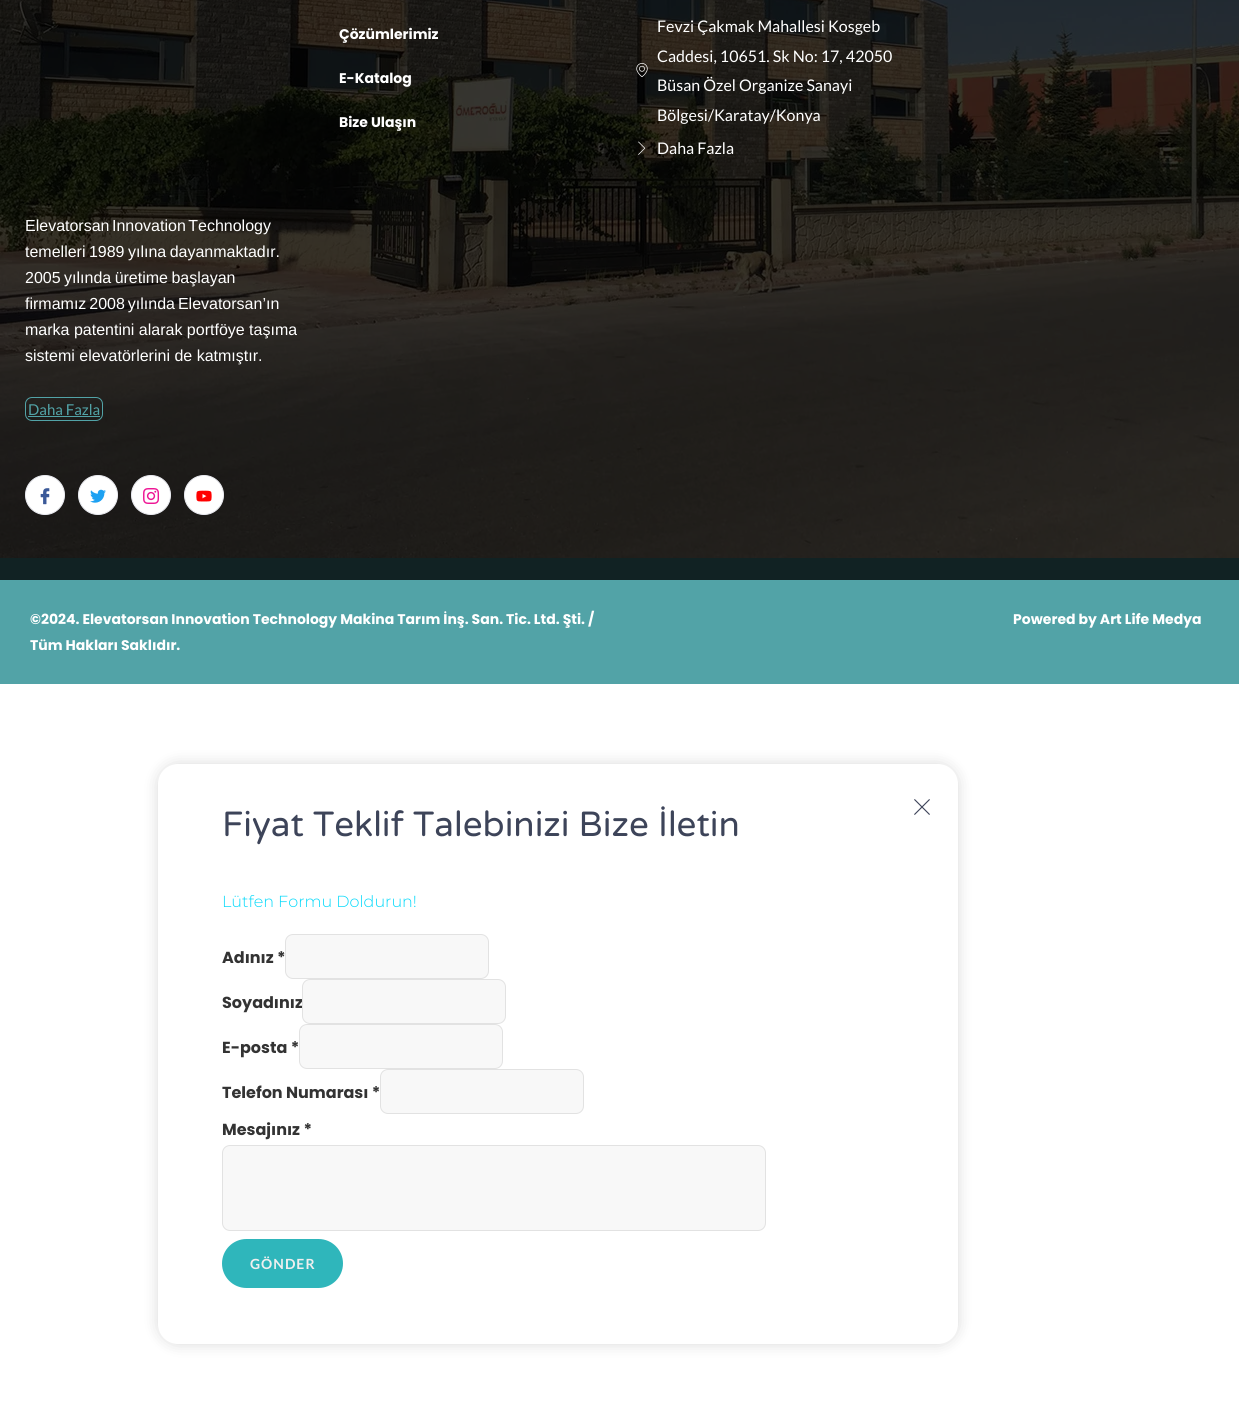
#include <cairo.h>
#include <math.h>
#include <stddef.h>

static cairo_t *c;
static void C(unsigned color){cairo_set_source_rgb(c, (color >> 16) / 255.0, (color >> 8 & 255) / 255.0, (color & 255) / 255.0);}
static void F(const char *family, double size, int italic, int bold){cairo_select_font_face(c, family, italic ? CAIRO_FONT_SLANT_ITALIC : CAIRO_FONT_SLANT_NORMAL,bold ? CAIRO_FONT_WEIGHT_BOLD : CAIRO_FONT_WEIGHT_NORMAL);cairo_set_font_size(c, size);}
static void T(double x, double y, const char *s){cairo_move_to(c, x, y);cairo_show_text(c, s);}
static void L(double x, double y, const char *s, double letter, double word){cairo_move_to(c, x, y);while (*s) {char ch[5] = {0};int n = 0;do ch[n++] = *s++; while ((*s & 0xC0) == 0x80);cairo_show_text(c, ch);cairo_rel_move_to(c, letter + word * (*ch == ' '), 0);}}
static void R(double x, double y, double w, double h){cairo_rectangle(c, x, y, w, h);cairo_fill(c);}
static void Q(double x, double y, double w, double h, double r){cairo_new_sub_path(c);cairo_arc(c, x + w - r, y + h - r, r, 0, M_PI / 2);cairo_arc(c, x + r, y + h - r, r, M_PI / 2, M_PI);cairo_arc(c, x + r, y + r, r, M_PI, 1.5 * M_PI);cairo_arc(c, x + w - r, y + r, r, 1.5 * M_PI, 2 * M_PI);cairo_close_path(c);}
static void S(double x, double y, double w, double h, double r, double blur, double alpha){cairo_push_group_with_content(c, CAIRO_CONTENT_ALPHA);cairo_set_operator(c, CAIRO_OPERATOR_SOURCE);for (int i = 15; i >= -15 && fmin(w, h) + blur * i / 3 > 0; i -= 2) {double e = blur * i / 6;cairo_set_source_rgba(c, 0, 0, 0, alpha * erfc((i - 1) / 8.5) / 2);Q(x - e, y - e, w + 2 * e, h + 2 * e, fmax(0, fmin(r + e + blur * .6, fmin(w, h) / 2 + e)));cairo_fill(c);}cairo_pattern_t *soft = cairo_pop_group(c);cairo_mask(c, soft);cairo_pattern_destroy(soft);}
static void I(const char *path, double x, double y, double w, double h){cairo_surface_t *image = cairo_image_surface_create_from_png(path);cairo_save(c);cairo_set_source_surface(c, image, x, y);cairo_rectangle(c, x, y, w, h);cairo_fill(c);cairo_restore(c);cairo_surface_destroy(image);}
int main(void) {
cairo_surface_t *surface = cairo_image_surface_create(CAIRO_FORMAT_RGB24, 1239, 1404);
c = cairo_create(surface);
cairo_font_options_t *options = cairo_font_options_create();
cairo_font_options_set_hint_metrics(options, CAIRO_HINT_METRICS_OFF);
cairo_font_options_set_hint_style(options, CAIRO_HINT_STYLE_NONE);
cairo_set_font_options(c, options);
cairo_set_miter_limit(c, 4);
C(0xffffff);
cairo_paint(c);
C(0x112223);
R(0,558,1239,22);
I("1.png",0,0,1239,558);
F("Poppins",14,0,1);
C(0xffffff);
T(339,39,"Çözümlerimiz");
T(339,83,"E-Katalog");
T(339,127,"Bize Ulaşın");
I("2.png",636,63,12,14);
F("Lato",16,0,0);
T(657,32,"Fevzi Çakmak Mahallesi Kosgeb");
T(657,62,"Caddesi, 10651. Sk No: 17, 42050");
T(657,91,"Büsan Özel Organize Sanayi");
T(657,121,"Bölgesi/Karatay/Konya");
I("3.png",638,141,8,14);
T(657,154,"Daha Fazla");
F("Liberation Sans",16,0,0);
L(25,231,"Elevatorsan Innovation Technology",0,-2);
L(25,257,"temelleri 1989 yılına dayanmaktadır.",0,-1);
L(25,283,"2005 yılında üretime başlayan",0,-1);
L(25,309,"firmamız 2008 yılında Elevatorsan’ın",0,-1.5);
T(25,335,"marka patentini alarak portföye taşıma");
T(25,361,"sistemi elevatörlerini de katmıştır.");
Q(25.5,397.5,77,23,6.5);
C(0x52a3a7);
cairo_set_line_width(c,1);
cairo_stroke(c);
F("Lato",15,0,0);
T(28,415,"Daha Fazla");
R(28,416,72,1);
C(0xffffff);
cairo_new_path(c);
cairo_arc(c,45,495,19.5,0,2 * M_PI);
cairo_fill_preserve(c);
C(0xeaebf1);
cairo_stroke(c);
I("4.png",40,488,10,17);
C(0xffffff);
cairo_arc(c,98,495,19.5,0,2 * M_PI);
cairo_fill_preserve(c);
C(0xeaebf1);
cairo_stroke(c);
I("5.png",90,489,16,14);
C(0xffffff);
cairo_arc(c,151,495,19.5,0,2 * M_PI);
cairo_fill_preserve(c);
C(0xeaebf1);
cairo_stroke(c);
I("6.png",143,488,17,16);
C(0xffffff);
cairo_arc(c,204,495,19.5,0,2 * M_PI);
cairo_fill_preserve(c);
C(0xeaebf1);
cairo_stroke(c);
I("7.png",196,490,16,12);
C(0x52a3a7);
R(0,580,1239,104);
F("Poppins",14,0,1);
C(0xffffff);
T(30,624,"©2024. Elevatorsan Innovation Technology Makina Tarım İnş. San. Tic. Ltd. Şti. /");
T(30,650,"Tüm Hakları Saklıdır.");
T(1013,624,"Powered by Art Life Medya");
C(0x000000);
S(158,764,800,580,20,7.5,.15);
C(0xffffff);
Q(158,764,800,580,20);
cairo_fill(c);
F("Varela Round",35,0,0);
C(0x3d4459);
T(222,836,"Fiyat Teklif Talebinizi Bize İletin");
I("8.png",914,799,16,16);
F("Montserrat Light",16,0,0);
C(0x06d9fa);
T(222,907,"Lütfen Formu Doldurun!");
F("Poppins",16,0,1);
C(0x333333);
T(222,963,"Adınız *");
C(0xf8f8f8);
Q(285.5,934.5,203,44,7.5);
cairo_fill_preserve(c);
C(0xe2e2e2);
cairo_stroke(c);
C(0x333333);
T(222,1008,"Soyadınız");
C(0xf8f8f8);
Q(302.5,979.5,203,44,7.5);
cairo_fill_preserve(c);
C(0xe2e2e2);
cairo_stroke(c);
C(0x333333);
T(222,1053,"E-posta *");
C(0xf8f8f8);
Q(299.5,1024.5,203,44,7.5);
cairo_fill_preserve(c);
C(0xe2e2e2);
cairo_stroke(c);
C(0x333333);
T(222,1098,"Telefon Numarası *");
C(0xf8f8f8);
Q(380.5,1069.5,203,44,7.5);
cairo_fill_preserve(c);
C(0xe2e2e2);
cairo_stroke(c);
C(0x333333);
T(222,1135,"Mesajınız *");
C(0xf8f8f8);
Q(222.5,1145.5,543,85,7.5);
cairo_fill_preserve(c);
C(0xe2e2e2);
cairo_stroke(c);
C(0x2fb6bb);
Q(222,1239,121,49,24.5);
cairo_fill(c);
F("Lato",14,0,1);
C(0xefefef);
L(250,1269,"GÖNDER",1,0);
cairo_surface_write_to_png(surface, "o.png");
cairo_font_options_destroy(options);
cairo_destroy(c);
cairo_surface_destroy(surface);
return 0;
}
